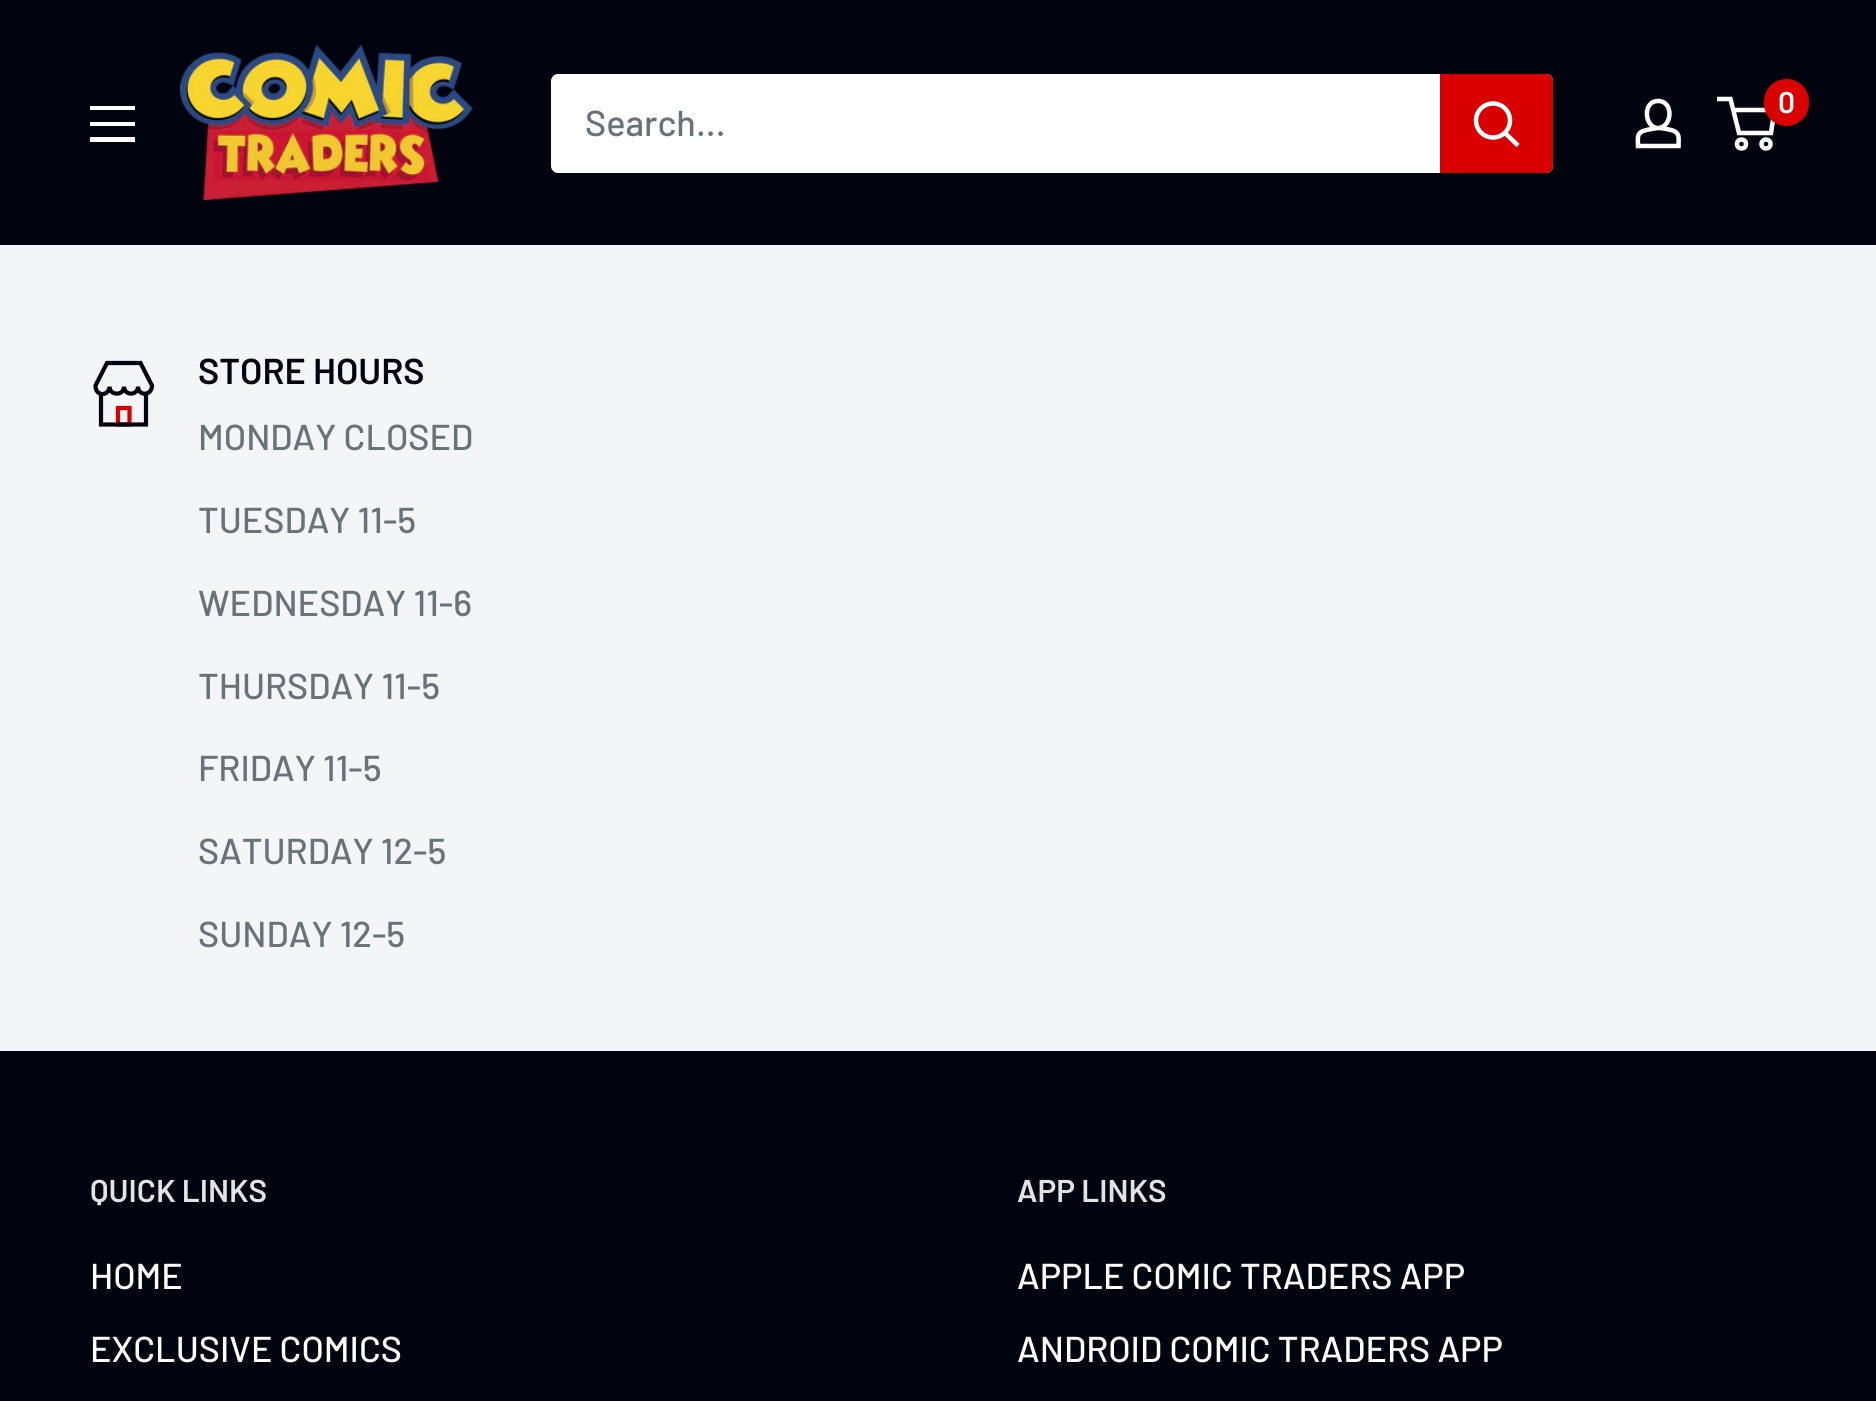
#include <cairo.h>
#include <math.h>
#include <stddef.h>

static cairo_t *c;
static void C(unsigned color){cairo_set_source_rgb(c, (color >> 16) / 255.0, (color >> 8 & 255) / 255.0, (color & 255) / 255.0);}
static void F(const char *family, double size, int italic, int bold){cairo_select_font_face(c, family, italic ? CAIRO_FONT_SLANT_ITALIC : CAIRO_FONT_SLANT_NORMAL,bold ? CAIRO_FONT_WEIGHT_BOLD : CAIRO_FONT_WEIGHT_NORMAL);cairo_set_font_size(c, size);}
static void T(double x, double y, const char *s){cairo_move_to(c, x, y);cairo_show_text(c, s);}
static void R(double x, double y, double w, double h){cairo_rectangle(c, x, y, w, h);cairo_fill(c);}
static void Q(double x, double y, double w, double h, double r){cairo_new_sub_path(c);cairo_arc(c, x + w - r, y + h - r, r, 0, M_PI / 2);cairo_arc(c, x + r, y + h - r, r, M_PI / 2, M_PI);cairo_arc(c, x + r, y + r, r, M_PI, 1.5 * M_PI);cairo_arc(c, x + w - r, y + r, r, 1.5 * M_PI, 2 * M_PI);cairo_close_path(c);}
static void I(const char *path, double x, double y, double w, double h){cairo_surface_t *image = cairo_image_surface_create_from_png(path);cairo_save(c);cairo_set_source_surface(c, image, x, y);cairo_rectangle(c, x, y, w, h);cairo_fill(c);cairo_restore(c);cairo_surface_destroy(image);}
int main(void) {
cairo_surface_t *surface = cairo_image_surface_create(CAIRO_FORMAT_RGB24, 1876, 1401);
c = cairo_create(surface);
cairo_font_options_t *options = cairo_font_options_create();
cairo_font_options_set_hint_metrics(options, CAIRO_HINT_METRICS_OFF);
cairo_font_options_set_hint_style(options, CAIRO_HINT_STYLE_NONE);
cairo_set_font_options(c, options);
cairo_set_miter_limit(c, 4);
C(0xf3f5f6);
cairo_paint(c);
C(0x01030e);
R(0,0,1876,245);
I("1.png",180,44,293,156);
cairo_new_path(c);
cairo_move_to(c,1658,128);
cairo_curve_to(c,1662.5,128,1666.5,129,1671,130);
cairo_curve_to(c,1680.5,132.5,1678.5,138,1678.5,146);
cairo_line_to(c,1638,146);
cairo_curve_to(c,1638,137,1636,132.5,1646.5,130);
cairo_curve_to(c,1650.5,129,1654.5,128.5,1658,128);
cairo_close_path(c);
cairo_move_to(c,1658,128);
cairo_curve_to(c,1644.5,128,1642,101,1658,101);
cairo_curve_to(c,1674.5,101,1672,128,1658,128);
cairo_close_path(c);
C(0xffffff);
cairo_set_line_width(c,4.5);
cairo_stroke(c);
cairo_arc(c,1741.5,144,4.5,0,2 * M_PI);
cairo_stroke(c);
cairo_arc(c,1766,144,4.5,0,2 * M_PI);
cairo_stroke(c);
cairo_new_path(c);
cairo_move_to(c,1733,110);
cairo_line_to(c,1774.5,110);
cairo_line_to(c,1771,133);
cairo_line_to(c,1739,133);
cairo_line_to(c,1730.5,99);
cairo_line_to(c,1717,99);
cairo_stroke(c);
C(0xdb0000);
Q(1764,79,45,47,22.5);
cairo_fill(c);
F("Barlow SemiBold",30,0,0);
C(0xffffff);
T(1778,113,"0");
cairo_set_fill_rule(c,CAIRO_FILL_RULE_EVEN_ODD);
cairo_new_path(c);
cairo_move_to(c,90,137);
cairo_line_to(c,135,137);
cairo_line_to(c,135,142);
cairo_line_to(c,90,142);
cairo_close_path(c);
cairo_move_to(c,90,106);
cairo_line_to(c,135,106);
cairo_line_to(c,135,110);
cairo_line_to(c,90,110);
cairo_close_path(c);
cairo_move_to(c,90,122);
cairo_line_to(c,135,122);
cairo_line_to(c,135,126);
cairo_line_to(c,90,126);
cairo_close_path(c);
cairo_fill(c);
Q(551,74,1002,99,7);
cairo_fill(c);
F("Barlow Medium",36,0,0);
C(0x677279);
T(585,136,"Search...");
C(0xdb0000);
cairo_new_path(c);
cairo_move_to(c,1440,74);
cairo_line_to(c,1546,74);
cairo_curve_to(c,1550,74,1553,77,1553,81);
cairo_line_to(c,1553,166);
cairo_curve_to(c,1553,170,1550,173,1546,173);
cairo_line_to(c,1440,173);
cairo_close_path(c);
cairo_fill(c);
cairo_new_path(c);
cairo_move_to(c,1516.5,144);
cairo_line_to(c,1505,133);
C(0xffffff);
cairo_set_line_cap(c,CAIRO_LINE_CAP_SQUARE);
cairo_stroke(c);
cairo_arc(c,1493,120.5,17,0,2 * M_PI);
cairo_set_line_cap(c,CAIRO_LINE_CAP_BUTT);
cairo_stroke(c);
cairo_new_path(c);
cairo_move_to(c,118,408);
cairo_line_to(c,129.5,408);
cairo_line_to(c,129.5,424.5);
cairo_line_to(c,118,424.5);
cairo_close_path(c);
C(0xdb0000);
cairo_set_line_width(c,4.2);
cairo_stroke(c);
cairo_new_path(c);
cairo_move_to(c,101,394);
cairo_line_to(c,101,424.5);
cairo_line_to(c,146,424.5);
cairo_line_to(c,146,394);
cairo_move_to(c,152,385.5);
cairo_curve_to(c,152,396,138,396.5,138,386.5);
cairo_curve_to(c,138,396,124,396,124,386.5);
cairo_curve_to(c,124,396,109.5,396,109.5,386.5);
cairo_curve_to(c,109.5,390.5,106.5,394,102.5,394);
cairo_curve_to(c,98.5,394,95.5,391,95.5,385.5);
cairo_line_to(c,107,363);
cairo_line_to(c,140.5,363);
cairo_close_path(c);
C(0x01030e);
cairo_set_line_cap(c,CAIRO_LINE_CAP_SQUARE);
cairo_stroke(c);
F("Barlow SemiBold",36,0,0);
T(198,384,"STORE HOURS");
F("Barlow Medium",36,0,0);
C(0x677279);
T(198,450,"MONDAY CLOSED");
T(198,533,"TUESDAY 11-5");
T(198,616,"WEDNESDAY 11-6");
T(198,699,"THURSDAY 11-5");
T(198,781,"FRIDAY 11-5");
T(198,864,"SATURDAY 12-5");
T(198,947,"SUNDAY 12-5");
C(0x01030e);
R(0,1051,1876,350);
F("Barlow SemiBold",31.5,0,0);
C(0xe1e3e4);
T(90,1202,"QUICK LINKS");
F("Barlow Medium",36,0,0);
C(0xffffff);
T(90,1289,"HOME");
T(90,1362,"EXCLUSIVE COMICS");
F("Barlow SemiBold",31.5,0,0);
C(0xe1e3e4);
T(1017,1202,"APP LINKS");
F("Barlow Medium",36,0,0);
C(0xffffff);
T(1017,1289,"APPLE COMIC TRADERS APP");
T(1017,1362,"ANDROID COMIC TRADERS APP");
cairo_surface_write_to_png(surface, "o.png");
cairo_font_options_destroy(options);
cairo_destroy(c);
cairo_surface_destroy(surface);
return 0;
}
